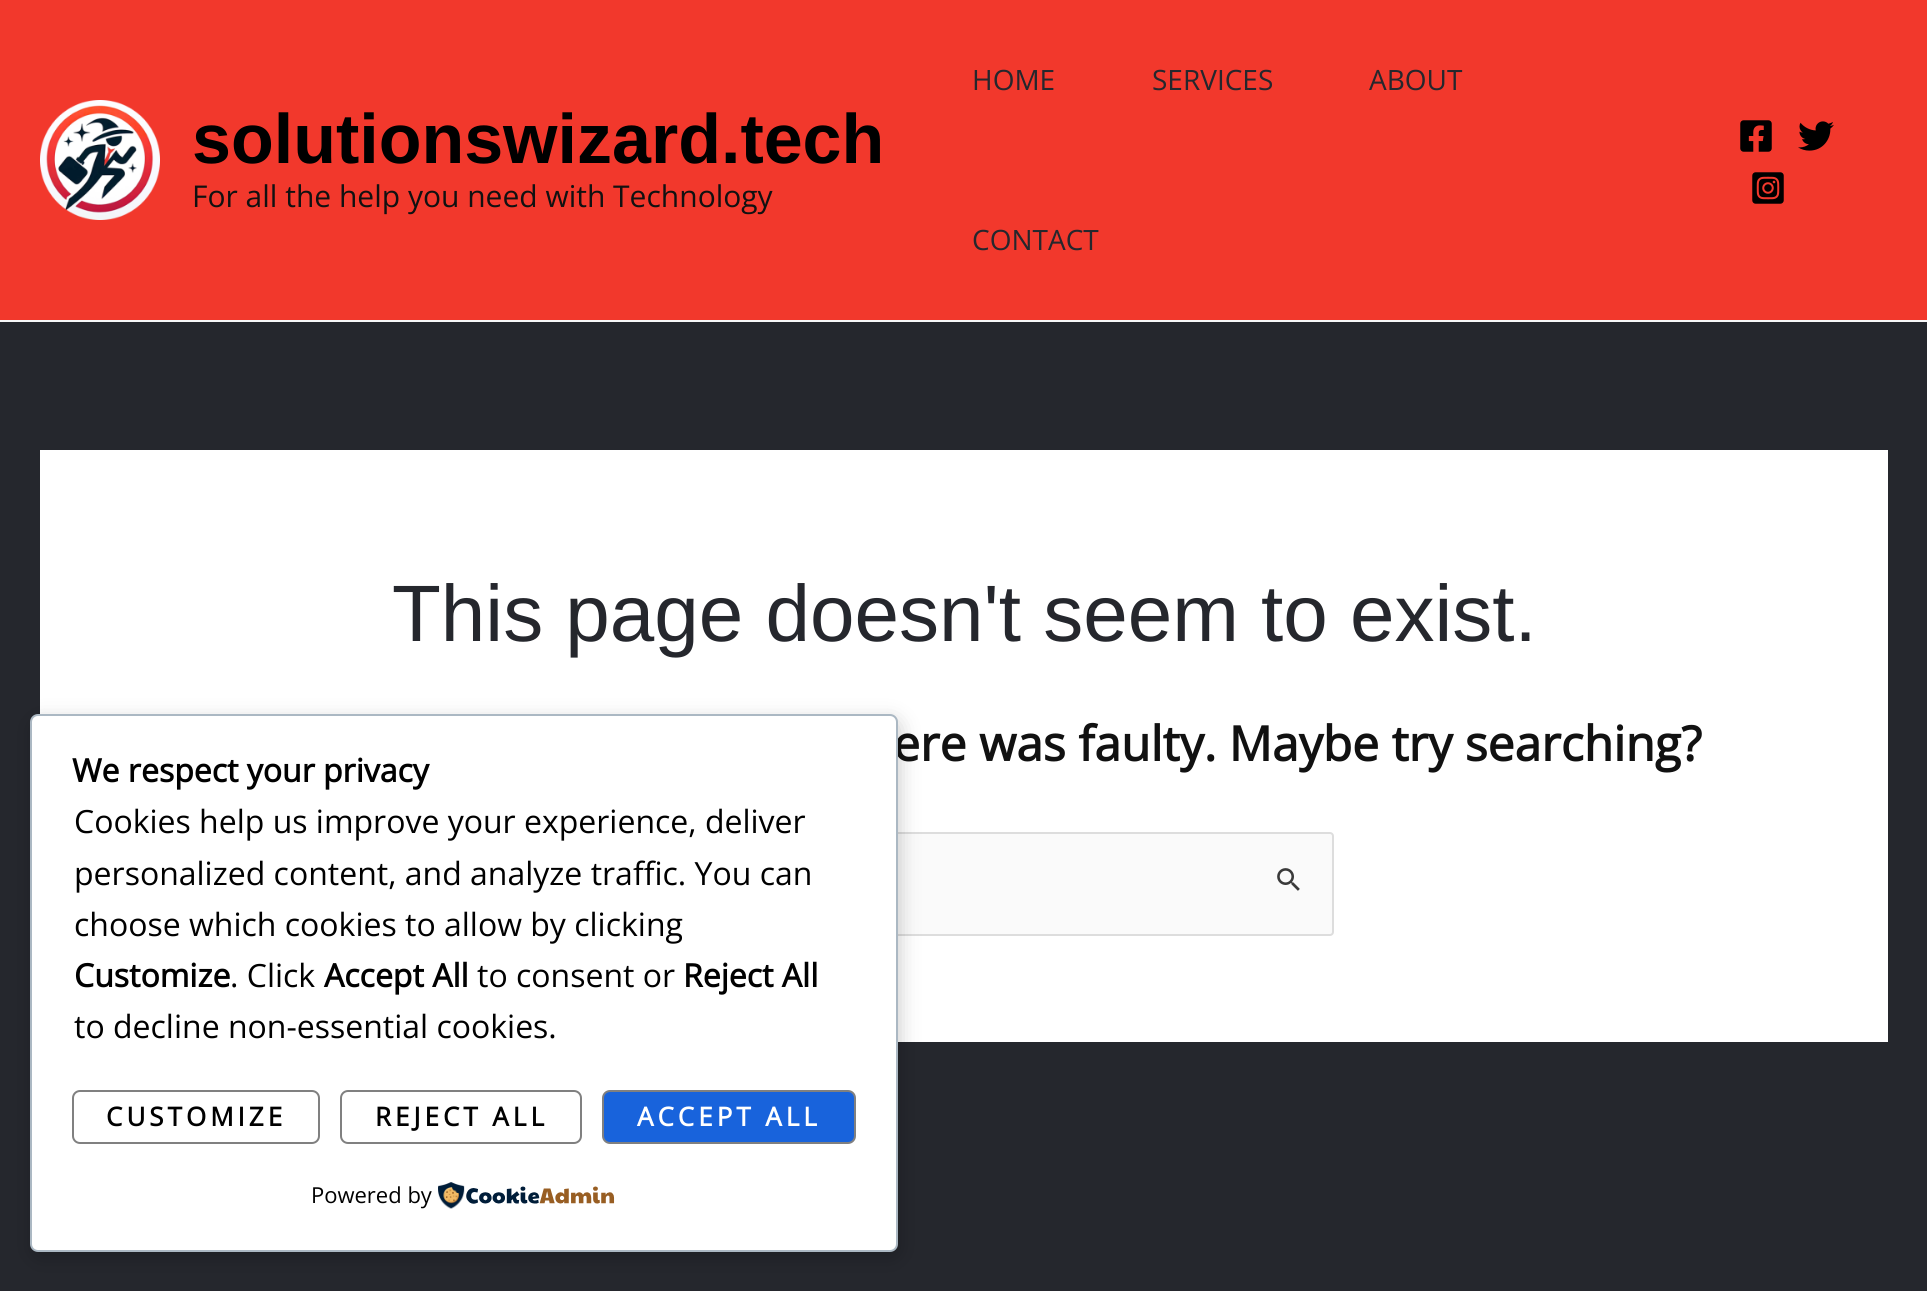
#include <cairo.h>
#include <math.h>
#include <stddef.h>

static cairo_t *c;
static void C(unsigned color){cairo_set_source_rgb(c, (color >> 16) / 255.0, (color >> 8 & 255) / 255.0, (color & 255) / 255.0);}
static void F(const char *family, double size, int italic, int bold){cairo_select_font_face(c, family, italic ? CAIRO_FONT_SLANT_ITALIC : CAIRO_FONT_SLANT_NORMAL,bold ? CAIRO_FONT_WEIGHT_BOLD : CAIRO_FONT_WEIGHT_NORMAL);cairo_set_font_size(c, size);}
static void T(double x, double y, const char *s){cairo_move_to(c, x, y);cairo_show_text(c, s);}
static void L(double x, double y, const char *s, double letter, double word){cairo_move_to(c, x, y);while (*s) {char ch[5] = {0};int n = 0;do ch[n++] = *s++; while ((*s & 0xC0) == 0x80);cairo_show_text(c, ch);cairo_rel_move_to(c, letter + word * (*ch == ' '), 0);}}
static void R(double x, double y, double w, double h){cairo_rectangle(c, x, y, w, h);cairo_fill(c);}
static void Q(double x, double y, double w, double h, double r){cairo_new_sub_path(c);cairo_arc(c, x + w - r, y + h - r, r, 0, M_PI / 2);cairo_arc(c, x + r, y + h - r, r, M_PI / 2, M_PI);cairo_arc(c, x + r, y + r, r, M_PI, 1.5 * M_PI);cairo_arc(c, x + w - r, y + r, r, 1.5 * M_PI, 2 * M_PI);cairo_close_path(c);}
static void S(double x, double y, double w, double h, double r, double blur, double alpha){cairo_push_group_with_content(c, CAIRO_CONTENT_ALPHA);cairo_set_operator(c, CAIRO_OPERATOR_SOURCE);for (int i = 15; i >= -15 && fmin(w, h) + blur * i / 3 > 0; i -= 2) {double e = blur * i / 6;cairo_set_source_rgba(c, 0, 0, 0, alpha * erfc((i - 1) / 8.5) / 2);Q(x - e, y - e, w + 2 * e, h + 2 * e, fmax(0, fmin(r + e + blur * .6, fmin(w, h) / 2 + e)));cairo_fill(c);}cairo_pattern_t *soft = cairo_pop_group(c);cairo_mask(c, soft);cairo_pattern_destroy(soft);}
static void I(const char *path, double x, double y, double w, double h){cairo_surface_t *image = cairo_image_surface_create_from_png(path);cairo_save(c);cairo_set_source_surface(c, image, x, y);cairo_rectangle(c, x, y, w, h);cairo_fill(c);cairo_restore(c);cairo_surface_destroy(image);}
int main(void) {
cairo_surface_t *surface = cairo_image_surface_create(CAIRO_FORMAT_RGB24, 1927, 1291);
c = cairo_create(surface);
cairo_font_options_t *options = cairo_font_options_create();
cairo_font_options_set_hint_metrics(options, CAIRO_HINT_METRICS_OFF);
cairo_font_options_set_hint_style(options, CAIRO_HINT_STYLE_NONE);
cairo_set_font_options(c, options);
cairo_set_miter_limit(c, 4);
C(0x25272d);
cairo_paint(c);
C(0xf2382c);
R(0,0,1927,320);
C(0xf7f7f8);
R(0,320,1927,2);
I("1.png",40,100,120,120);
F("Liberation Sans",70,0,1);
C(0x000000);
T(192,163,"solutionswizard.tech");
F("Open Sans",30,0,0);
C(0x111111);
T(192,207,"For all the help you need with Technology");
F("Open Sans",28,0,0);
C(0x25272d);
T(972,90,"HOME");
T(1152,90,"SERVICES");
T(1369,90,"ABOUT");
T(972,250,"CONTACT");
I("2.png",1740,120,32,32);
I("3.png",1798,121,36,30);
I("4.png",1752,172,32,32);
C(0xffffff);
R(40,450,1848,592);
F("Liberation Sans",80,0,0);
C(0x25272d);
T(392,641,"This page doesn't seem to exist.");
F("Open Sans",48,0,1);
C(0x111111);
T(893,761,"ere was faulty. Maybe try searching?");
C(0xfafafa);
Q(595,833,738,102,3);
cairo_fill_preserve(c);
C(0xdddddd);
cairo_stroke(c);
I("5.png",1277,868,23,23);
C(0x000000);
S(32,720,868,538,8,10,.2);
C(0xffffff);
Q(31,715,866,536,7);
cairo_fill_preserve(c);
C(0xabb8c3);
cairo_stroke(c);
F("Open Sans",32,0,1);
C(0x000000);
T(72,782,"We respect your privacy");
F("Open Sans",32,0,0);
T(74,833,"Cookies help us improve your experience, deliver");
T(74,885,"personalized content, and analyze traffic. You can");
T(74,936,"choose which cookies to allow by clicking");
F("Open Sans",32,0,1);
T(74,987,"Customize");
F("Open Sans",32,0,0);
T(230,987,". Click");
F("Open Sans",32,0,1);
T(324,987,"Accept All");
F("Open Sans",32,0,0);
T(477,987,"to consent or");
F("Open Sans",32,0,1);
T(683,987,"Reject All");
F("Open Sans",32,0,0);
T(74,1038,"to decline non-essential cookies.");
Q(73,1091,246,52,7);
C(0x808080);
cairo_stroke(c);
F("Open Sans",26,0,1);
C(0x000000);
L(106,1126,"CUSTOMIZE",4,0);
Q(341,1091,240,52,7);
C(0x808080);
cairo_stroke(c);
C(0x000000);
L(375,1126,"REJECT ALL",4,0);
C(0x1863dc);
Q(603,1091,252,52,7);
cairo_fill_preserve(c);
C(0x808080);
cairo_stroke(c);
C(0xffffff);
L(637,1126,"ACCEPT ALL",4,0);
F("Open Sans",22,0,0);
C(0x000000);
T(311,1203,"Powered by");
I("6.png",438,1182,177,27);
cairo_surface_write_to_png(surface, "o.png");
cairo_font_options_destroy(options);
cairo_destroy(c);
cairo_surface_destroy(surface);
return 0;
}
